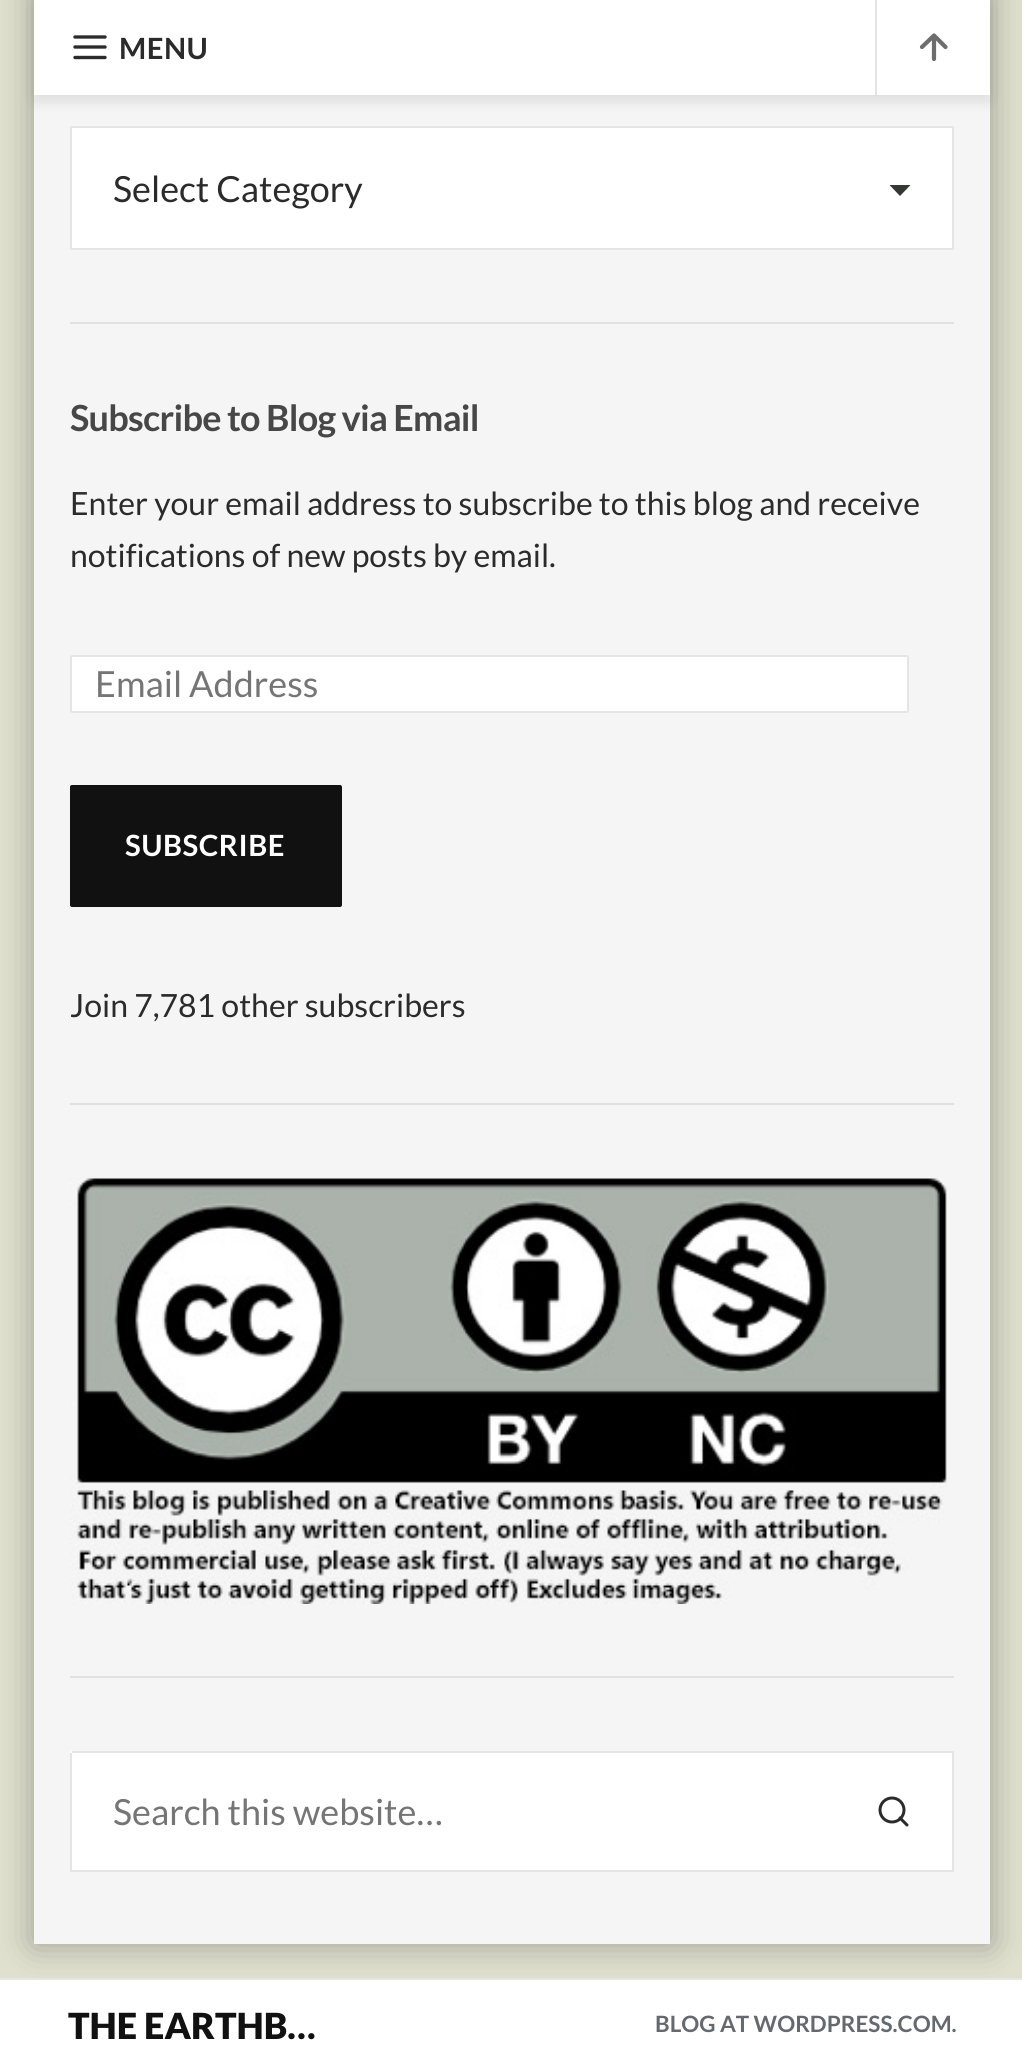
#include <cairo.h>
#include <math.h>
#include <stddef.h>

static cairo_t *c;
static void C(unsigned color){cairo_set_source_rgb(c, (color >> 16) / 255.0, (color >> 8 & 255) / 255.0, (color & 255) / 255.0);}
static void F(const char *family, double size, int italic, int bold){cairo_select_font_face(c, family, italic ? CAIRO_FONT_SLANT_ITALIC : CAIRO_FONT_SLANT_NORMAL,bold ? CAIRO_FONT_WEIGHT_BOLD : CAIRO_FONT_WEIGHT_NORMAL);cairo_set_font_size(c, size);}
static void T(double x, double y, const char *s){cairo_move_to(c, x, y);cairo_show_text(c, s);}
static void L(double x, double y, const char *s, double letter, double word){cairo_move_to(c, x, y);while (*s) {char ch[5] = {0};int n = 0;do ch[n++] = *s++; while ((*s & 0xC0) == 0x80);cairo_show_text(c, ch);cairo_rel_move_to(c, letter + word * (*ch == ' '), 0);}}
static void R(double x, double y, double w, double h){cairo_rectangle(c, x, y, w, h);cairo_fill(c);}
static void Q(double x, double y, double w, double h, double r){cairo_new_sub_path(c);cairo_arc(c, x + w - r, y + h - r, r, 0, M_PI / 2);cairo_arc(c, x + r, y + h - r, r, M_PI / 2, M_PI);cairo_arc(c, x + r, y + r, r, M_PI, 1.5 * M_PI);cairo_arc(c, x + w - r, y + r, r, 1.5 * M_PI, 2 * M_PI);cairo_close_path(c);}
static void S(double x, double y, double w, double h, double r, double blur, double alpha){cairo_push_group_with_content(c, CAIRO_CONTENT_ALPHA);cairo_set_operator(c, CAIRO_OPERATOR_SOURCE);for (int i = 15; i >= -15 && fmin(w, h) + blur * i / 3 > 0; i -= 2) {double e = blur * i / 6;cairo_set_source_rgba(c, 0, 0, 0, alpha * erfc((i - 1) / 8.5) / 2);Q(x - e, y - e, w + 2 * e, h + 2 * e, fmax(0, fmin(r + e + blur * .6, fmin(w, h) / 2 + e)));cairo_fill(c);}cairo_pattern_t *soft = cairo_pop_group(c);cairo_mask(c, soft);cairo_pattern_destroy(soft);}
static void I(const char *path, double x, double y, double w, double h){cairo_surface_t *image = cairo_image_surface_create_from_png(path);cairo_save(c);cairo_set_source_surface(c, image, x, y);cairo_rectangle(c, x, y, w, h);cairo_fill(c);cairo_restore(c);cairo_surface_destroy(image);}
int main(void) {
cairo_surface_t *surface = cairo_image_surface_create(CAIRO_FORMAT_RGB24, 1022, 2066);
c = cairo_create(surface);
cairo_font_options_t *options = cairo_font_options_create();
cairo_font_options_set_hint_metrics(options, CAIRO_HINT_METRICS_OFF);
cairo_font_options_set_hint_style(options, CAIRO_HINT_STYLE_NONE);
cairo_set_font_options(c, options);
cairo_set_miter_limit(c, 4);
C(0xe0e0ce);
cairo_paint(c);
C(0xffffff);
R(0,1980,1022,86);
C(0xe6e6e6);
R(0,1978,1022,2);
C(0x000000);
S(34,-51,956,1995,0,17,.3);
C(0xf5f5f5);
R(34,95,956,1849);
C(0x000000);
S(34,2,956,95,0,8,.07);
S(34,9,956,95,0,5.5,.05);
C(0xffffff);
R(34,0,956,95);
cairo_new_path(c);
cairo_move_to(c,75,47);
cairo_line_to(c,105,47);
cairo_move_to(c,75,37);
cairo_line_to(c,105,37);
cairo_move_to(c,75,57.5);
cairo_line_to(c,105,57.5);
C(0x2b2b2b);
cairo_set_line_width(c,3.4);
cairo_set_line_cap(c,CAIRO_LINE_CAP_ROUND);
cairo_set_line_join(c,CAIRO_LINE_JOIN_ROUND);
cairo_stroke(c);
F("Lato",29.25,0,1);
L(119,59,"MENU",.5,0);
C(0xe5e5e5);
R(875,0,2,95);
cairo_new_path(c);
cairo_move_to(c,934,59);
cairo_line_to(c,934,35.5);
cairo_move_to(c,922,47);
cairo_line_to(c,934,35.5);
cairo_line_to(c,945.5,47);
C(0x6d6d6d);
cairo_set_line_width(c,4.2);
cairo_stroke(c);
C(0xffffff);
R(72,128,880,120);
cairo_save(c);
cairo_rectangle(c,889,185,22,22);
cairo_clip(c);
C(0x353833);
cairo_new_path(c);
cairo_move_to(c,889,184.5);
cairo_line_to(c,911,184.5);
cairo_line_to(c,900,196);
cairo_close_path(c);
cairo_fill(c);
cairo_restore(c);
cairo_rectangle(c,71,127,882,122);
C(0xe5e5e5);
cairo_set_line_width(c,2);
cairo_set_line_cap(c,CAIRO_LINE_CAP_BUTT);
cairo_set_line_join(c,CAIRO_LINE_JOIN_MITER);
cairo_stroke(c);
F("Lato",36,0,0);
C(0x2b2b2b);
T(113,202,"Select Category");
C(0xe1e1e1);
R(70,322,884,2);
F("Lato",36,0,1);
C(0x474747);
L(70,431,"Subscribe to Blog via Email",-.75,0);
F("Lato",32,0,0);
C(0x2b2b2b);
T(70,515,"Enter your email address to subscribe to this blog and receive");
T(70,567,"notifications of new posts by email.");
C(0xffffff);
Q(71,656,837,56,1);
cairo_fill_preserve(c);
C(0xe5e5e5);
cairo_stroke(c);
F("Lato",36,0,0);
C(0x757575);
T(95,697,"Email Address");
C(0x111111);
Q(70,785,272,122,2);
cairo_fill(c);
F("Lato",29.25,0,1);
C(0xffffff);
L(125,856,"SUBSCRIBE",.5,0);
F("Lato",32,0,0);
C(0x2b2b2b);
T(70,1017,"Join 7,781 other subscribers");
C(0xe1e1e1);
R(70,1103,884,2);
I("1.png",70,1178,877,426);
R(70,1676,884,2);
C(0xffffff);
Q(70,1751,765,121,2);
cairo_fill(c);
C(0xe5e5e5);
R(72,1751,882,2);
R(72,1870,763,2);
R(70,1753,2,119);
F("Lato",36,0,0);
C(0x757575);
T(113,1825,"Search this website…");
C(0xffffff);
R(835,1753,117,117);
C(0xe5e5e5);
R(952,1751,2,121);
R(835,1870,119,2);
cairo_new_path(c);
cairo_arc(c,892,1810,12,0,2 * M_PI);
C(0x2b2b2b);
cairo_set_line_width(c,3);
cairo_stroke(c);
cairo_new_path(c);
cairo_move_to(c,907,1825);
cairo_line_to(c,900,1818);
cairo_set_line_cap(c,CAIRO_LINE_CAP_ROUND);
cairo_set_line_join(c,CAIRO_LINE_JOIN_ROUND);
cairo_stroke(c);
cairo_save(c);
cairo_rectangle(c,68,1996,267,56);
cairo_clip(c);
F("Lato Black",36,0,0);
C(0x111111);
T(68,2039,"THE EARTHB…");
cairo_restore(c);
F("Lato",22.5,0,1);
C(0x646970);
T(655,2032,"BLOG AT WORDPRESS.COM.");
cairo_surface_write_to_png(surface, "o.png");
cairo_font_options_destroy(options);
cairo_destroy(c);
cairo_surface_destroy(surface);
return 0;
}
